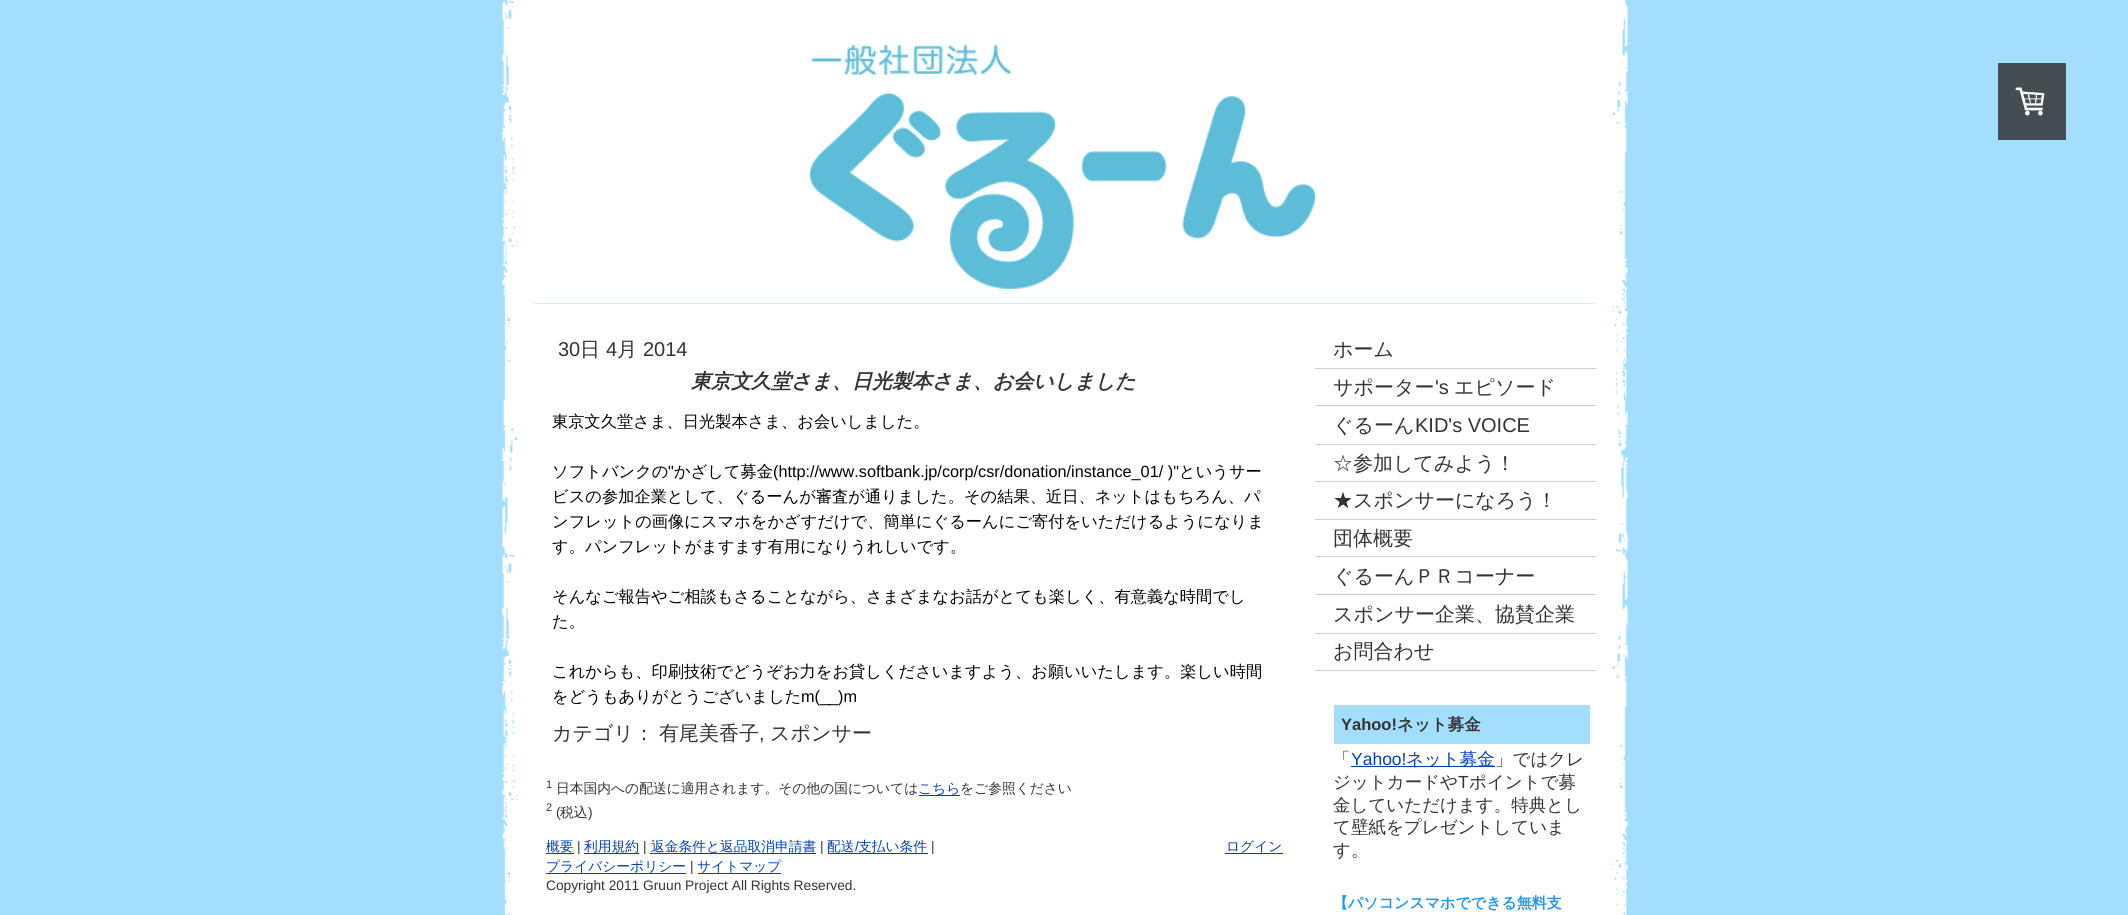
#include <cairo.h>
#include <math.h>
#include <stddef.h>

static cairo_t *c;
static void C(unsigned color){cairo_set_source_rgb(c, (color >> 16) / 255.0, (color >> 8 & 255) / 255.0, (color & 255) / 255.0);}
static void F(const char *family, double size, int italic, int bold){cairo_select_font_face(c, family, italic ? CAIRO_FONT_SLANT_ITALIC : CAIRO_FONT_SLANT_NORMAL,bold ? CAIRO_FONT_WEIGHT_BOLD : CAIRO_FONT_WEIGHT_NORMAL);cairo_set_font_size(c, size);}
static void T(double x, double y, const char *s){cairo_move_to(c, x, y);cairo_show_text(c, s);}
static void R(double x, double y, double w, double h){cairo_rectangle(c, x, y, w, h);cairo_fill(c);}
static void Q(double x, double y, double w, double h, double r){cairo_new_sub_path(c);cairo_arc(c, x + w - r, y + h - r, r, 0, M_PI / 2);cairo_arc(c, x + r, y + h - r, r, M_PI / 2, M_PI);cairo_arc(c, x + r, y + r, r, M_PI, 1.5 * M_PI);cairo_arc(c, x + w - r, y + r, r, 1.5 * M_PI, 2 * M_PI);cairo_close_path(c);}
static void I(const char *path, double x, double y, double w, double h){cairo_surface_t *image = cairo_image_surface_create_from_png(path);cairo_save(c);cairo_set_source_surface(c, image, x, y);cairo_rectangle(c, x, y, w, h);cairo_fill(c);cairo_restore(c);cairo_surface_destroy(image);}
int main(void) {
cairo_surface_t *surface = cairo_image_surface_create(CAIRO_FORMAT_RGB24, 2128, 915);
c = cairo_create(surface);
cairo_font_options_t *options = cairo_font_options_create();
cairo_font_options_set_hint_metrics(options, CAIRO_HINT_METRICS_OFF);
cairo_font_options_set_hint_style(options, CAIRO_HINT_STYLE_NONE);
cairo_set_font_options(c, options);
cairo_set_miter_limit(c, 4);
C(0xa3deff);
cairo_paint(c);
I("1.png",502,0,1126,915);
C(0x7fedf1);
R(534,303,1062,1);
I("2.png",534,25,1062,279);
F("Liberation Sans",20,0,0);
C(0x333333);
T(558,356,"30");
F("WenQuanYi Zen Hei Medium",20,0,0);
T(580,356,"日");
F("Liberation Sans",20,0,0);
T(606,356,"4");
F("WenQuanYi Zen Hei Medium",20,0,0);
T(617,356,"月");
F("Liberation Sans",20,0,0);
T(643,356,"2014");
F("WenQuanYi Zen Hei",20,1,1);
T(691,388,"東京文久堂さま、日光製本さま、お会いしました");
F("WenQuanYi Zen Hei Medium",16.25,0,0);
C(0x000000);
T(552,427,"東京文久堂さま、日光製本さま、お会いしました。");
T(552,477,"ソフトバンクの");
F("Liberation Sans",16.25,0,0);
T(668,477,"\"");
F("WenQuanYi Zen Hei Medium",16.25,0,0);
T(674,477,"かざして募金");
F("Liberation Sans",16.25,0,0);
T(773,477,"(http://www.softbank.jp/corp/csr/donation/instance_01/ )\"");
F("WenQuanYi Zen Hei Medium",16.25,0,0);
T(1179,477,"というサー");
T(552,502,"ビスの参加企業として、ぐるーんが審査が通りました。その結果、近日、ネットはもちろん、パ");
T(552,527,"ンフレットの画像にスマホをかざすだけで、簡単にぐるーんにご寄付をいただけるようになりま");
T(552,552,"す。パンフレットがますます有用になりうれしいです。");
T(552,602,"そんなご報告やご相談もさることながら、さまざまなお話がとても楽しく、有意義な時間でし");
T(552,627,"た。");
T(552,677,"これからも、印刷技術でどうぞお力をお貸しくださいますよう、お願いいたします。楽しい時間");
T(552,702,"をどうもありがとうございました");
F("Liberation Sans",16.25,0,0);
T(801,702,"m(__)m");
F("WenQuanYi Zen Hei Medium",20,0,0);
C(0x333333);
T(552,740,"カテゴリ：");
T(659,740,"有尾美香子");
F("Liberation Sans",20,0,0);
T(759,740,",");
F("WenQuanYi Zen Hei Medium",20,0,0);
T(770,740,"スポンサー");
F("Liberation Sans",11,0,0);
T(546,788,"1");
F("WenQuanYi Zen Hei Medium",13.75,0,0);
T(556,793,"日本国内への配送に適用されます。その他の国については");
C(0x0040b6);
T(918,793,"こちら");
R(919,795,41,1);
C(0x333333);
T(960,793,"をご参照ください");
F("Liberation Sans",11,0,0);
T(546,811,"2");
F("Liberation Sans",13.75,0,0);
T(556,817,"(");
F("WenQuanYi Zen Hei Medium",13.75,0,0);
T(560,817,"税込");
F("Liberation Sans",13.75,0,0);
T(588,817,")");
F("WenQuanYi Zen Hei Medium",13.75,0,0);
C(0x0040b6);
T(546,851,"概要");
R(546,853,28,1);
F("Liberation Sans",13.75,0,0);
C(0x333333);
T(577,851,"|");
C(0x0040b6);
R(584,853,55,1);
F("WenQuanYi Zen Hei Medium",13.75,0,0);
T(584,851,"利用規約");
F("Liberation Sans",13.75,0,0);
C(0x333333);
T(643,851,"|");
F("WenQuanYi Zen Hei Medium",13.75,0,0);
C(0x0040b6);
T(651,851,"返金条件と返品取消申請書");
R(650,853,166,1);
F("Liberation Sans",13.75,0,0);
C(0x333333);
T(820,851,"|");
F("WenQuanYi Zen Hei Medium",13.75,0,0);
C(0x0040b6);
T(827,851,"配送");
F("Liberation Sans",13.75,0,0);
T(855,851,"/");
R(828,853,100,1);
F("WenQuanYi Zen Hei Medium",13.75,0,0);
T(858,851,"支払い条件");
F("Liberation Sans",13.75,0,0);
C(0x333333);
T(931,851,"|");
F("WenQuanYi Zen Hei Medium",13.75,0,0);
C(0x0040b6);
T(546,871,"プライバシーポリシー");
R(546,873,140,1);
F("Liberation Sans",13.75,0,0);
C(0x333333);
T(690,871,"|");
F("WenQuanYi Zen Hei Medium",13.75,0,0);
C(0x0040b6);
T(697,871,"サイトマップ");
R(698,873,83,1);
F("Liberation Sans",13.75,0,0);
C(0x333333);
T(546,890,"Copyright 2011 Gruun Project All Rights Reserved.");
F("WenQuanYi Zen Hei Medium",13.75,0,0);
C(0x0040b6);
T(1226,851,"ログイン");
R(1225,853,58,1);
C(0xcccccc);
R(1315,368,281,1);
F("WenQuanYi Zen Hei Medium",20,0,0);
C(0x333333);
T(1333,356,"ホーム");
C(0xcccccc);
R(1315,405,281,1);
C(0x333333);
T(1333,394,"サポーター");
F("Liberation Sans",20,0,0);
T(1435,394,"'s");
F("WenQuanYi Zen Hei Medium",20,0,0);
T(1454,394,"エピソード");
C(0xcccccc);
R(1315,444,281,1);
C(0x333333);
T(1333,432,"ぐるーん");
F("Liberation Sans",20,0,0);
T(1415,432,"KID's VOICE");
C(0xcccccc);
R(1315,481,281,1);
F("WenQuanYi Zen Hei Medium",20,0,0);
C(0x333333);
T(1333,470,"☆参加してみよう！");
C(0xcccccc);
R(1315,519,281,1);
C(0x333333);
T(1333,507,"★スポンサーになろう！");
C(0xcccccc);
R(1315,556,281,1);
C(0x333333);
T(1333,545,"団体概要");
C(0xcccccc);
R(1315,594,281,1);
C(0x333333);
T(1333,583,"ぐるーんＰＲコーナー");
C(0xcccccc);
R(1315,633,281,1);
C(0x333333);
T(1333,621,"スポンサー企業、協賛企業");
C(0xcccccc);
R(1315,670,281,1);
C(0x333333);
T(1333,658,"お問合わせ");
C(0x444d52);
Q(1998,63,68,77,1);
cairo_fill(c);
I("3.png",2015,87,30,29);
C(0xa3deff);
R(1334,705,256,39);
F("Liberation Sans",16.5,0,1);
C(0x333333);
T(1341,730,"Yahoo!");
F("WenQuanYi Zen Hei",16.5,0,1);
T(1397,730,"ネット募金");
F("WenQuanYi Zen Hei Medium",17.5,0,0);
T(1333,765,"「");
F("Liberation Sans",17.5,0,0);
C(0x0040b6);
T(1351,765,"Yahoo!");
R(1351,766,144,1);
F("WenQuanYi Zen Hei Medium",17.5,0,0);
T(1406,765,"ネット募金");
C(0x333333);
T(1495,765,"」ではクレ");
T(1333,788,"ジットカードや");
F("Liberation Sans",17.5,0,0);
T(1458,788,"T");
F("WenQuanYi Zen Hei Medium",17.5,0,0);
T(1469,788,"ポイントで募");
T(1333,811,"金していただけます。特典とし");
T(1333,833,"て壁紙をプレゼントしていま");
T(1333,856,"す。");
F("WenQuanYi Zen Hei",15,0,1);
C(0x1d95f1);
T(1333,908,"【パソコンスマホでできる無料支");
cairo_surface_write_to_png(surface, "o.png");
cairo_font_options_destroy(options);
cairo_destroy(c);
cairo_surface_destroy(surface);
return 0;
}
